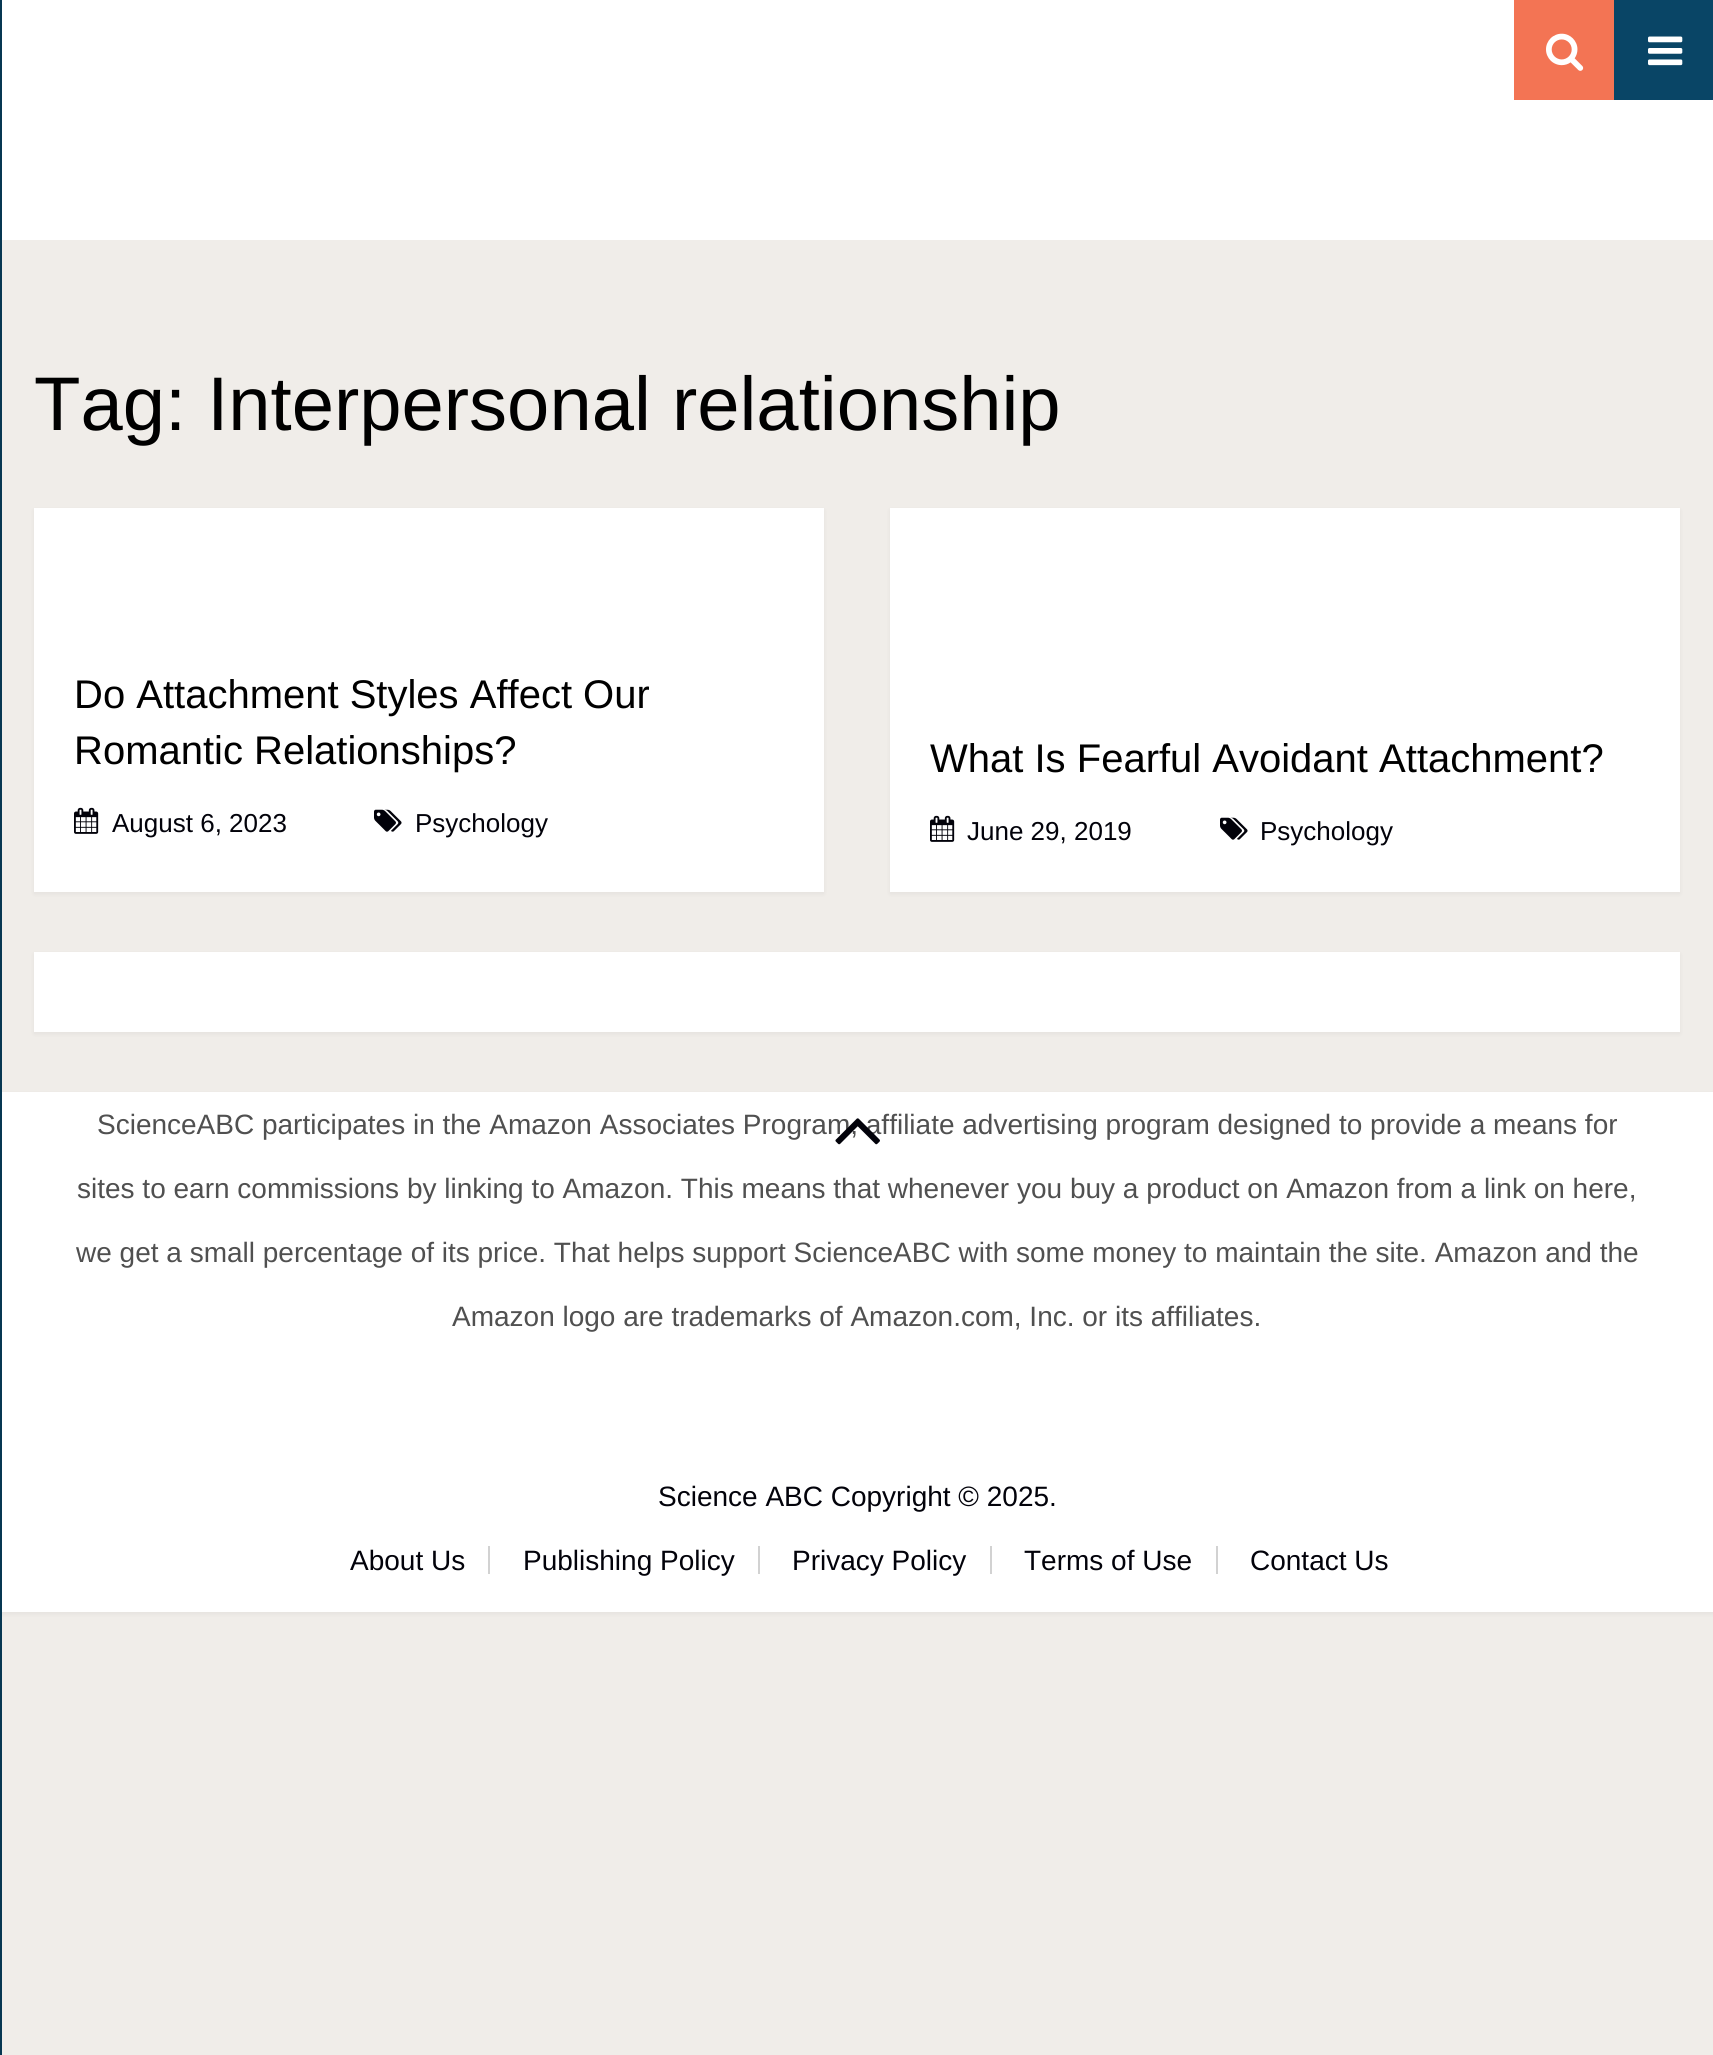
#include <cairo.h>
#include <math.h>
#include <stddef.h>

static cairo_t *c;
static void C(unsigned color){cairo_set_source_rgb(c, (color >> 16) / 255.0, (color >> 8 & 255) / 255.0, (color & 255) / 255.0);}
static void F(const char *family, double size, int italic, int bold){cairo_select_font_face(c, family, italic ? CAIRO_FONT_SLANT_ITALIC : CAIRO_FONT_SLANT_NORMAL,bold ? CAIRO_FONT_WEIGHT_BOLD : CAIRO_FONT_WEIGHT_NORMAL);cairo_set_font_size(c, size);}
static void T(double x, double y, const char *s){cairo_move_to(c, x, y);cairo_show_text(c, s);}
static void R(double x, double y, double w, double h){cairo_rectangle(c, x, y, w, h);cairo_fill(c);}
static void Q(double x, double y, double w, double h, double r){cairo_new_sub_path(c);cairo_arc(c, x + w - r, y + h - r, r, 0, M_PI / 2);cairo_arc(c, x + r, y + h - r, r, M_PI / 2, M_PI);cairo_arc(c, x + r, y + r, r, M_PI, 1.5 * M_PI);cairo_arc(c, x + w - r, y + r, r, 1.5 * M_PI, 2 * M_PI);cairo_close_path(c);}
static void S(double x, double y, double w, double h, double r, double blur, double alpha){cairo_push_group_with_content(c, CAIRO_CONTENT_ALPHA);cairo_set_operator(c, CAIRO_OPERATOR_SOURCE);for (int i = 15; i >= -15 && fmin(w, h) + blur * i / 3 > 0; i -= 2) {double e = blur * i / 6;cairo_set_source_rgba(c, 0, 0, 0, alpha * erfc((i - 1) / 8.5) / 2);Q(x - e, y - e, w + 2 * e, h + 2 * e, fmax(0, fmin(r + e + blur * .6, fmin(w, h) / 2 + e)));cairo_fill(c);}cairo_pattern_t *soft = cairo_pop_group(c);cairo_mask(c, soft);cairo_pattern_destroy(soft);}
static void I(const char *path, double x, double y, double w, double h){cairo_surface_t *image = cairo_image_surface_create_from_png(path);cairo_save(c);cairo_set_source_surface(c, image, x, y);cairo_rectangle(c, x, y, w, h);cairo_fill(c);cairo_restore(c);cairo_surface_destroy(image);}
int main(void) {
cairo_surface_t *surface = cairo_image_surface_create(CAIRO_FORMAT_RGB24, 1713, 2055);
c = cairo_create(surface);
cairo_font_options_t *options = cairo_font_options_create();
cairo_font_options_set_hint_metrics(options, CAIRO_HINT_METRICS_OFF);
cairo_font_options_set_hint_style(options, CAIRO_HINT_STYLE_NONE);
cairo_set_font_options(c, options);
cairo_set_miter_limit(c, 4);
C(0xf0ede9);
cairo_paint(c);
C(0xffffff);
R(2,0,1711,240);
C(0x094566);
R(1614,0,99,100);
C(0x000000);
S(0,1094,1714,520,0,2,.05);
C(0x073752);
R(0,0,2,2055);
I("1.png",1648,36,35,30);
C(0xf37454);
R(1514,0,100,100);
I("2.png",1546,33,38,38);
F("Liberation Sans",76,0,0);
C(0x000000);
T(34,430,"Tag: Interpersonal relationship");
C(0x000000);
S(34,510,790,384,0,2,.05);
C(0xffffff);
R(34,508,790,384);
F("Liberation Sans",40,0,0);
C(0x000000);
T(74,708,"Do Attachment Styles Affect Our");
T(74,764,"Romantic Relationships?");
I("3.png",74,807,25,27);
F("Liberation Sans",26,0,0);
C(0x02020a);
T(112,832,"August 6, 2023");
I("4.png",374,809,28,23);
T(415,832,"Psychology");
C(0x000000);
S(890,510,790,384,0,2,.05);
C(0xffffff);
R(890,508,790,384);
F("Liberation Sans",40,0,0);
C(0x000000);
T(930,772,"What Is Fearful Avoidant Attachment?");
I("3.png",930,815,25,27);
F("Liberation Sans",26,0,0);
C(0x02020a);
T(967,840,"June 29, 2019");
I("4.png",1220,817,28,23);
T(1260,840,"Psychology");
C(0x000000);
S(34,954,1646,80,0,2,.05);
C(0xffffff);
R(34,952,1646,80);
R(2,1092,1711,520);
F("Liberation Sans",28,0,0);
C(0x505050);
T(97,1134,"ScienceABC participates in the Amazon Associates Program, affiliate advertising program designed to provide a means for");
T(77,1198,"sites to earn commissions by linking to Amazon. This means that whenever you buy a product on Amazon from a link on here,");
T(76,1262,"we get a small percentage of its price. That helps support ScienceABC with some money to maintain the site. Amazon and the");
T(452,1326,"Amazon logo are trademarks of Amazon.com, Inc. or its affiliates.");
I("5.png",835,1118,45,27);
C(0x02020a);
T(658,1506,"Science ABC Copyright © 2025.");
C(0xd2d2d2);
R(488,1546,2,28);
C(0x02020a);
T(350,1570,"About Us");
C(0xd2d2d2);
R(758,1546,2,28);
C(0x02020a);
T(523,1570,"Publishing Policy");
C(0xd2d2d2);
R(990,1546,2,28);
C(0x02020a);
T(792,1570,"Privacy Policy");
C(0xd2d2d2);
R(1216,1546,2,28);
C(0x02020a);
T(1024,1570,"Terms of Use");
T(1250,1570,"Contact Us");
cairo_surface_write_to_png(surface, "o.png");
cairo_font_options_destroy(options);
cairo_destroy(c);
cairo_surface_destroy(surface);
return 0;
}
